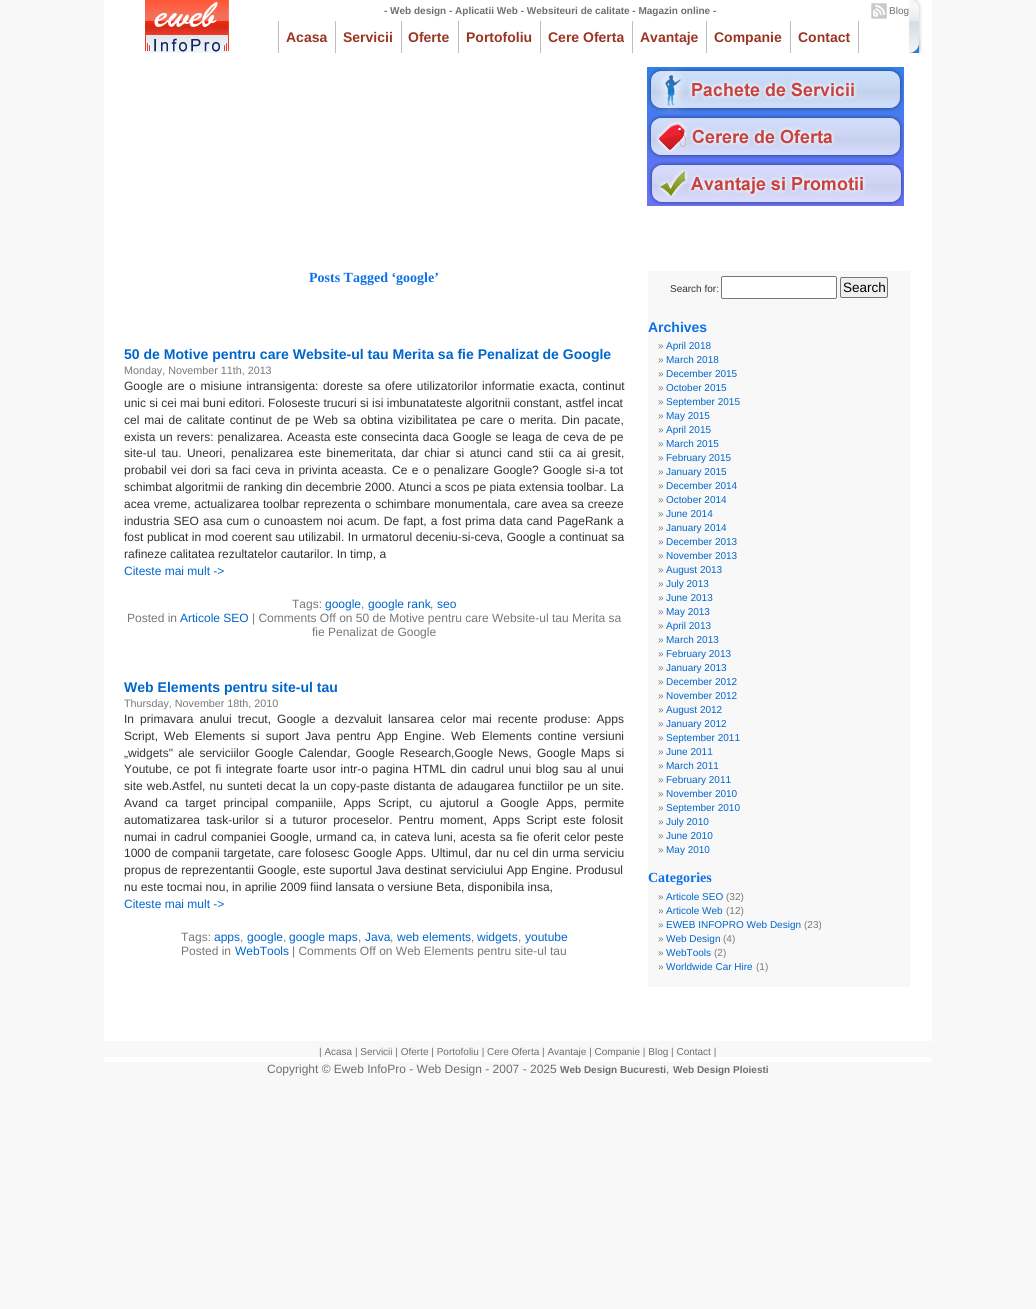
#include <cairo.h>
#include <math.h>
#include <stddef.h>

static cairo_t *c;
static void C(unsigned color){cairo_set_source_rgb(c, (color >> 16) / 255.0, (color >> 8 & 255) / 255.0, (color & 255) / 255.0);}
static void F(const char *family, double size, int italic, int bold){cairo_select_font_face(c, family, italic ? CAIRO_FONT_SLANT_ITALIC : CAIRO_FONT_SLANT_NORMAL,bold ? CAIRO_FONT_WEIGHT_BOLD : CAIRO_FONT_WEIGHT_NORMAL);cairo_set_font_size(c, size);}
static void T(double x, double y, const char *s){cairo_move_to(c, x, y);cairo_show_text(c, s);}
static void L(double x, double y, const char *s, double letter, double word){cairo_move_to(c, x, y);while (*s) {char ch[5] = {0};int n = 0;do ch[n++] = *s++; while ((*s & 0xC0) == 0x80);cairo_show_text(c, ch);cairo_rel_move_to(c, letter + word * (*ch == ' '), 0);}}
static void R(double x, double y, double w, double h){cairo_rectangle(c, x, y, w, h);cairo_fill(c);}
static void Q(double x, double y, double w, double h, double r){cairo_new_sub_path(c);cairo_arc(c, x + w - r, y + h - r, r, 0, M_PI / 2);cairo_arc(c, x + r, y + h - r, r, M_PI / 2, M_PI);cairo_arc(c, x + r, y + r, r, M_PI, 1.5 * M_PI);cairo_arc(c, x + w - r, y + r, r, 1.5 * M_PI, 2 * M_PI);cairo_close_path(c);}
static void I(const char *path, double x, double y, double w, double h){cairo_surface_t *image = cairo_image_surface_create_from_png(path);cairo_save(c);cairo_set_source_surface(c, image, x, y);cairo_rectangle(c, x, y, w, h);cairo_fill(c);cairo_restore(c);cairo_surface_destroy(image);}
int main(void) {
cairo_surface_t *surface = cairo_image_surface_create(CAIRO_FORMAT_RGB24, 1036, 1309);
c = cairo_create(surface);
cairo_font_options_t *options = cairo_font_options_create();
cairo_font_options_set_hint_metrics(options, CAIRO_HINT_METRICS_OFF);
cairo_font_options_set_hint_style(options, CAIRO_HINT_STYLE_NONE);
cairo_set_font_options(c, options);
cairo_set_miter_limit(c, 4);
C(0xf8f8f8);
cairo_paint(c);
C(0xffffff);
R(104,0,828,1062);
I("1.png",145,0,84,53);
F("Liberation Sans",10,0,1);
C(0x6f6f6f);
T(384,14,"- Web design - Aplicatii Web - Websiteuri de calitate - Magazin online -");
I("2.png",871,3,16,16);
F("Liberation Sans",10,0,0);
T(889,14,"Blog");
C(0xc1bdbd);
R(278,21,1,32);
F("Liberation Sans",14,0,1);
C(0x9b3523);
T(286,42,"Acasa");
C(0xc1bdbd);
R(335,21,1,32);
C(0x9b3523);
T(343,42,"Servicii");
C(0xc1bdbd);
R(401,21,1,32);
C(0x9b3523);
T(408,42,"Oferte");
C(0xc1bdbd);
R(458,21,1,32);
C(0x9b3523);
T(466,42,"Portofoliu");
C(0xc1bdbd);
R(540,21,1,32);
C(0x9b3523);
T(548,42,"Cere Oferta");
C(0xc1bdbd);
R(632,21,1,32);
C(0x9b3523);
T(640,42,"Avantaje");
C(0xc1bdbd);
R(706,21,1,32);
C(0x9b3523);
T(714,42,"Companie");
C(0xc1bdbd);
R(790,21,1,32);
C(0x9b3523);
T(798,42,"Contact");
C(0xc1bdbd);
R(858,21,1,32);
I("3.png",909,0,13,53);
I("4.png",647,67,257,47);
I("5.png",647,114,257,45);
I("6.png",647,159,257,47);
F("Liberation Serif",14,0,1);
C(0x0c70e7);
T(309,282,"Posts Tagged ‘google’");
F("Liberation Sans",14.05,0,1);
C(0x0066cc);
T(124,359,"50 de Motive pentru care Website-ul tau Merita sa fie Penalizat de Google");
F("Liberation Sans",10.75,0,0);
C(0x777777);
T(124,374,"Monday, November 11th, 2013");
F("Liberation Sans",12,0,0);
C(0x333333);
L(124,390,"Google are o misiune intransigenta: doreste sa ofere utilizatorilor informatie exacta, continut",0,1.25);
T(124,407,"unic si cei mai buni editori. Foloseste trucuri si isi imbunatateste algoritnii constant, astfel incat");
L(124,424,"cel mai de calitate continut de pe Web sa obtina vizibilitatea pe care o merita. Din pacate,",0,1.6);
L(124,441,"exista un revers: penalizarea. Aceasta este consecinta daca Google se leaga de ceva de pe",0,.75);
L(124,457,"site-ul tau. Uneori, penalizarea este binemeritata, dar chiar si atunci cand stii ca ai gresit,",0,2.1);
L(124,474,"probabil vei dori sa faci ceva in privinta aceasta.",0,1);
L(392,474,"Ce e o penalizare Google? Google si-a tot",0,1);
T(124,491,"schimbat algoritmii de ranking din decembrie 2000. Atunci a scos pe piata extensia toolbar. La");
L(124,508,"acea vreme, actualizarea toolbar reprezenta o schimbare monumentala, care avea sa creeze",0,.5);
L(124,525,"industria SEO asa cum o cunoastem noi acum. De fapt, a fost prima data cand PageRank a",0,.8);
L(124,541,"fost publicat in mod coerent sau utilizabil. In urmatorul deceniu-si-ceva, Google a continuat sa",0,.25);
T(124,558,"rafineze calitatea rezultatelor cautarilor. In timp, a");
C(0x0066cc);
T(124,575,"Citeste mai mult ->");
C(0x777777);
T(292,608,"Tags:");
C(0x0066cc);
T(325,608,"google");
C(0x777777);
T(361,608,",");
C(0x0066cc);
T(368,608,"google rank");
C(0x777777);
T(430,608,",");
C(0x0066cc);
T(437,608,"seo");
C(0x777777);
T(127,622,"Posted in");
C(0x0066cc);
T(180,622,"Articole SEO");
C(0x777777);
T(252,622,"| Comments Off on 50 de Motive pentru care Website-ul tau Merita sa");
T(312,636,"fie Penalizat de Google");
F("Liberation Sans",14.05,0,1);
C(0x0066cc);
T(124,692,"Web Elements pentru site-ul tau");
F("Liberation Sans",10.75,0,0);
C(0x777777);
T(124,707,"Thursday, November 18th, 2010");
F("Liberation Sans",12,0,0);
C(0x333333);
L(124,723,"In primavara anului trecut, Google a dezvaluit lansarea celor mai recente produse: Apps",0,2.75);
L(124,740,"Script, Web Elements si suport Java pentru App Engine.",0,2.75);
L(451,740,"Web Elements contine versiuni",0,2.75);
L(124,757,"„widgets\" ale serviciilor Google Calendar, Google Research,Google News, Google Maps si",0,1.9);
L(124,773,"Youtube, ce pot fi integrate foarte usor intr-o pagina HTML din cadrul unui blog sau al unui",0,1.3);
L(124,790,"site web.Astfel, nu sunteti decat la un copy-paste distanta de adaugarea functiilor pe un site.",0,.75);
L(124,807,"Avand ca target principal companiile, Apps Script, cu ajutorul a Google Apps, permite",0,4);
L(124,824,"automatizarea task-urilor si a tuturor proceselor. Pentru moment, Apps Script este folosit",0,2.75);
L(124,841,"numai in cadrul companiei Google, urmand ca, in cateva luni, acesta sa fie oferit celor peste",0,.8);
L(124,857,"1000 de companii targetate, care folosesc Google Apps.",0,.5);
L(431,857,"Ultimul, dar nu cel din urma serviciu",0,.5);
L(124,874,"propus de reprezentantii Google, este suportul Java destinat serviciului App Engine. Produsul",0,.25);
T(124,891,"nu este tocmai nou, in aprilie 2009 fiind lansata o versiune Beta, disponibila insa,");
C(0x0066cc);
T(124,908,"Citeste mai mult ->");
C(0x777777);
T(181,941,"Tags:");
C(0x0066cc);
T(214,941,"apps");
C(0x777777);
T(240,941,",");
C(0x0066cc);
T(247,941,"google");
C(0x777777);
T(283,941,",");
C(0x0066cc);
T(289,941,"google maps");
C(0x777777);
T(358,941,",");
C(0x0066cc);
T(365,941,"Java");
C(0x777777);
T(390,941,",");
C(0x0066cc);
T(397,941,"web elements");
C(0x777777);
T(471,941,",");
C(0x0066cc);
T(477,941,"widgets");
C(0x777777);
T(518,941,",");
C(0x0066cc);
T(525,941,"youtube");
C(0x777777);
T(181,955,"Posted in");
C(0x0066cc);
T(235,955,"WebTools");
C(0x777777);
T(292,955,"| Comments Off on Web Elements pentru site-ul tau");
C(0xf8f8f8);
R(648,271,262,716);
F("Liberation Sans",10,0,0);
C(0x333333);
T(670,292,"Search for:");
C(0xffffff);
Q(721.5,276.5,115,22,1.5);
cairo_fill_preserve(c);
C(0x767676);
cairo_set_line_width(c,1);
cairo_stroke(c);
C(0xefefef);
Q(840.5,277.5,47,20,1.5);
cairo_fill_preserve(c);
C(0x767676);
cairo_stroke(c);
F("Liberation Sans",13.5,0,0);
C(0x000000);
T(843,292,"Search");
F("Liberation Sans",14,0,1);
C(0x0c70e7);
T(648,332,"Archives");
F("Liberation Sans",10,0,0);
C(0x777777);
T(658,349,"»");
C(0x0066cc);
T(666,349,"April 2018");
C(0x777777);
T(658,363,"»");
C(0x0066cc);
T(666,363,"March 2018");
C(0x777777);
T(658,377,"»");
C(0x0066cc);
T(666,377,"December 2015");
C(0x777777);
T(658,391,"»");
C(0x0066cc);
T(666,391,"October 2015");
C(0x777777);
T(658,405,"»");
C(0x0066cc);
T(666,405,"September 2015");
C(0x777777);
T(658,419,"»");
C(0x0066cc);
T(666,419,"May 2015");
C(0x777777);
T(658,433,"»");
C(0x0066cc);
T(666,433,"April 2015");
C(0x777777);
T(658,447,"»");
C(0x0066cc);
T(666,447,"March 2015");
C(0x777777);
T(658,461,"»");
C(0x0066cc);
T(666,461,"February 2015");
C(0x777777);
T(658,475,"»");
C(0x0066cc);
T(666,475,"January 2015");
C(0x777777);
T(658,489,"»");
C(0x0066cc);
T(666,489,"December 2014");
C(0x777777);
T(658,503,"»");
C(0x0066cc);
T(666,503,"October 2014");
C(0x777777);
T(658,517,"»");
C(0x0066cc);
T(666,517,"June 2014");
C(0x777777);
T(658,531,"»");
C(0x0066cc);
T(666,531,"January 2014");
C(0x777777);
T(658,545,"»");
C(0x0066cc);
T(666,545,"December 2013");
C(0x777777);
T(658,559,"»");
C(0x0066cc);
T(666,559,"November 2013");
C(0x777777);
T(658,573,"»");
C(0x0066cc);
T(666,573,"August 2013");
C(0x777777);
T(658,587,"»");
C(0x0066cc);
T(666,587,"July 2013");
C(0x777777);
T(658,601,"»");
C(0x0066cc);
T(666,601,"June 2013");
C(0x777777);
T(658,615,"»");
C(0x0066cc);
T(666,615,"May 2013");
C(0x777777);
T(658,629,"»");
C(0x0066cc);
T(666,629,"April 2013");
C(0x777777);
T(658,643,"»");
C(0x0066cc);
T(666,643,"March 2013");
C(0x777777);
T(658,657,"»");
C(0x0066cc);
T(666,657,"February 2013");
C(0x777777);
T(658,671,"»");
C(0x0066cc);
T(666,671,"January 2013");
C(0x777777);
T(658,685,"»");
C(0x0066cc);
T(666,685,"December 2012");
C(0x777777);
T(658,699,"»");
C(0x0066cc);
T(666,699,"November 2012");
C(0x777777);
T(658,713,"»");
C(0x0066cc);
T(666,713,"August 2012");
C(0x777777);
T(658,727,"»");
C(0x0066cc);
T(666,727,"January 2012");
C(0x777777);
T(658,741,"»");
C(0x0066cc);
T(666,741,"September 2011");
C(0x777777);
T(658,755,"»");
C(0x0066cc);
T(666,755,"June 2011");
C(0x777777);
T(658,769,"»");
C(0x0066cc);
T(666,769,"March 2011");
C(0x777777);
T(658,783,"»");
C(0x0066cc);
T(666,783,"February 2011");
C(0x777777);
T(658,797,"»");
C(0x0066cc);
T(666,797,"November 2010");
C(0x777777);
T(658,811,"»");
C(0x0066cc);
T(666,811,"September 2010");
C(0x777777);
T(658,825,"»");
C(0x0066cc);
T(666,825,"July 2010");
C(0x777777);
T(658,839,"»");
C(0x0066cc);
T(666,839,"June 2010");
C(0x777777);
T(658,853,"»");
C(0x0066cc);
T(666,853,"May 2010");
F("Liberation Serif",14,0,1);
C(0x0c70e7);
T(648,882,"Categories");
F("Liberation Sans",10,0,0);
C(0x777777);
T(658,900,"»");
C(0x0066cc);
T(666,900,"Articole SEO");
C(0x777777);
T(726,900,"(32)");
T(658,914,"»");
C(0x0066cc);
T(666,914,"Articole Web");
C(0x777777);
T(726,914,"(12)");
T(658,928,"»");
C(0x0066cc);
T(666,928,"EWEB INFOPRO Web Design");
C(0x777777);
T(804,928,"(23)");
T(658,942,"»");
C(0x0066cc);
T(666,942,"Web Design");
C(0x777777);
T(723,942,"(4)");
T(658,956,"»");
C(0x0066cc);
T(666,956,"WebTools");
C(0x777777);
T(714,956,"(2)");
T(658,970,"»");
C(0x0066cc);
T(666,970,"Worldwide Car Hire");
C(0x777777);
T(756,970,"(1)");
C(0xf8f8f8);
R(104,1041,828,16);
C(0x6f6f6f);
T(319,1055,"| Acasa | Servicii | Oferte | Portofoliu | Cere Oferta | Avantaje | Companie | Blog | Contact |");
F("Liberation Sans",12,0,0);
T(267,1073,"Copyright © Eweb InfoPro - Web Design - 2007 - 2025");
F("Liberation Sans",10,0,1);
T(560,1073,"Web Design Bucuresti");
F("Liberation Sans",12,0,0);
T(666,1073,",");
F("Liberation Sans",10,0,1);
T(673,1073,"Web Design Ploiesti");
cairo_surface_write_to_png(surface, "o.png");
cairo_font_options_destroy(options);
cairo_destroy(c);
cairo_surface_destroy(surface);
return 0;
}
